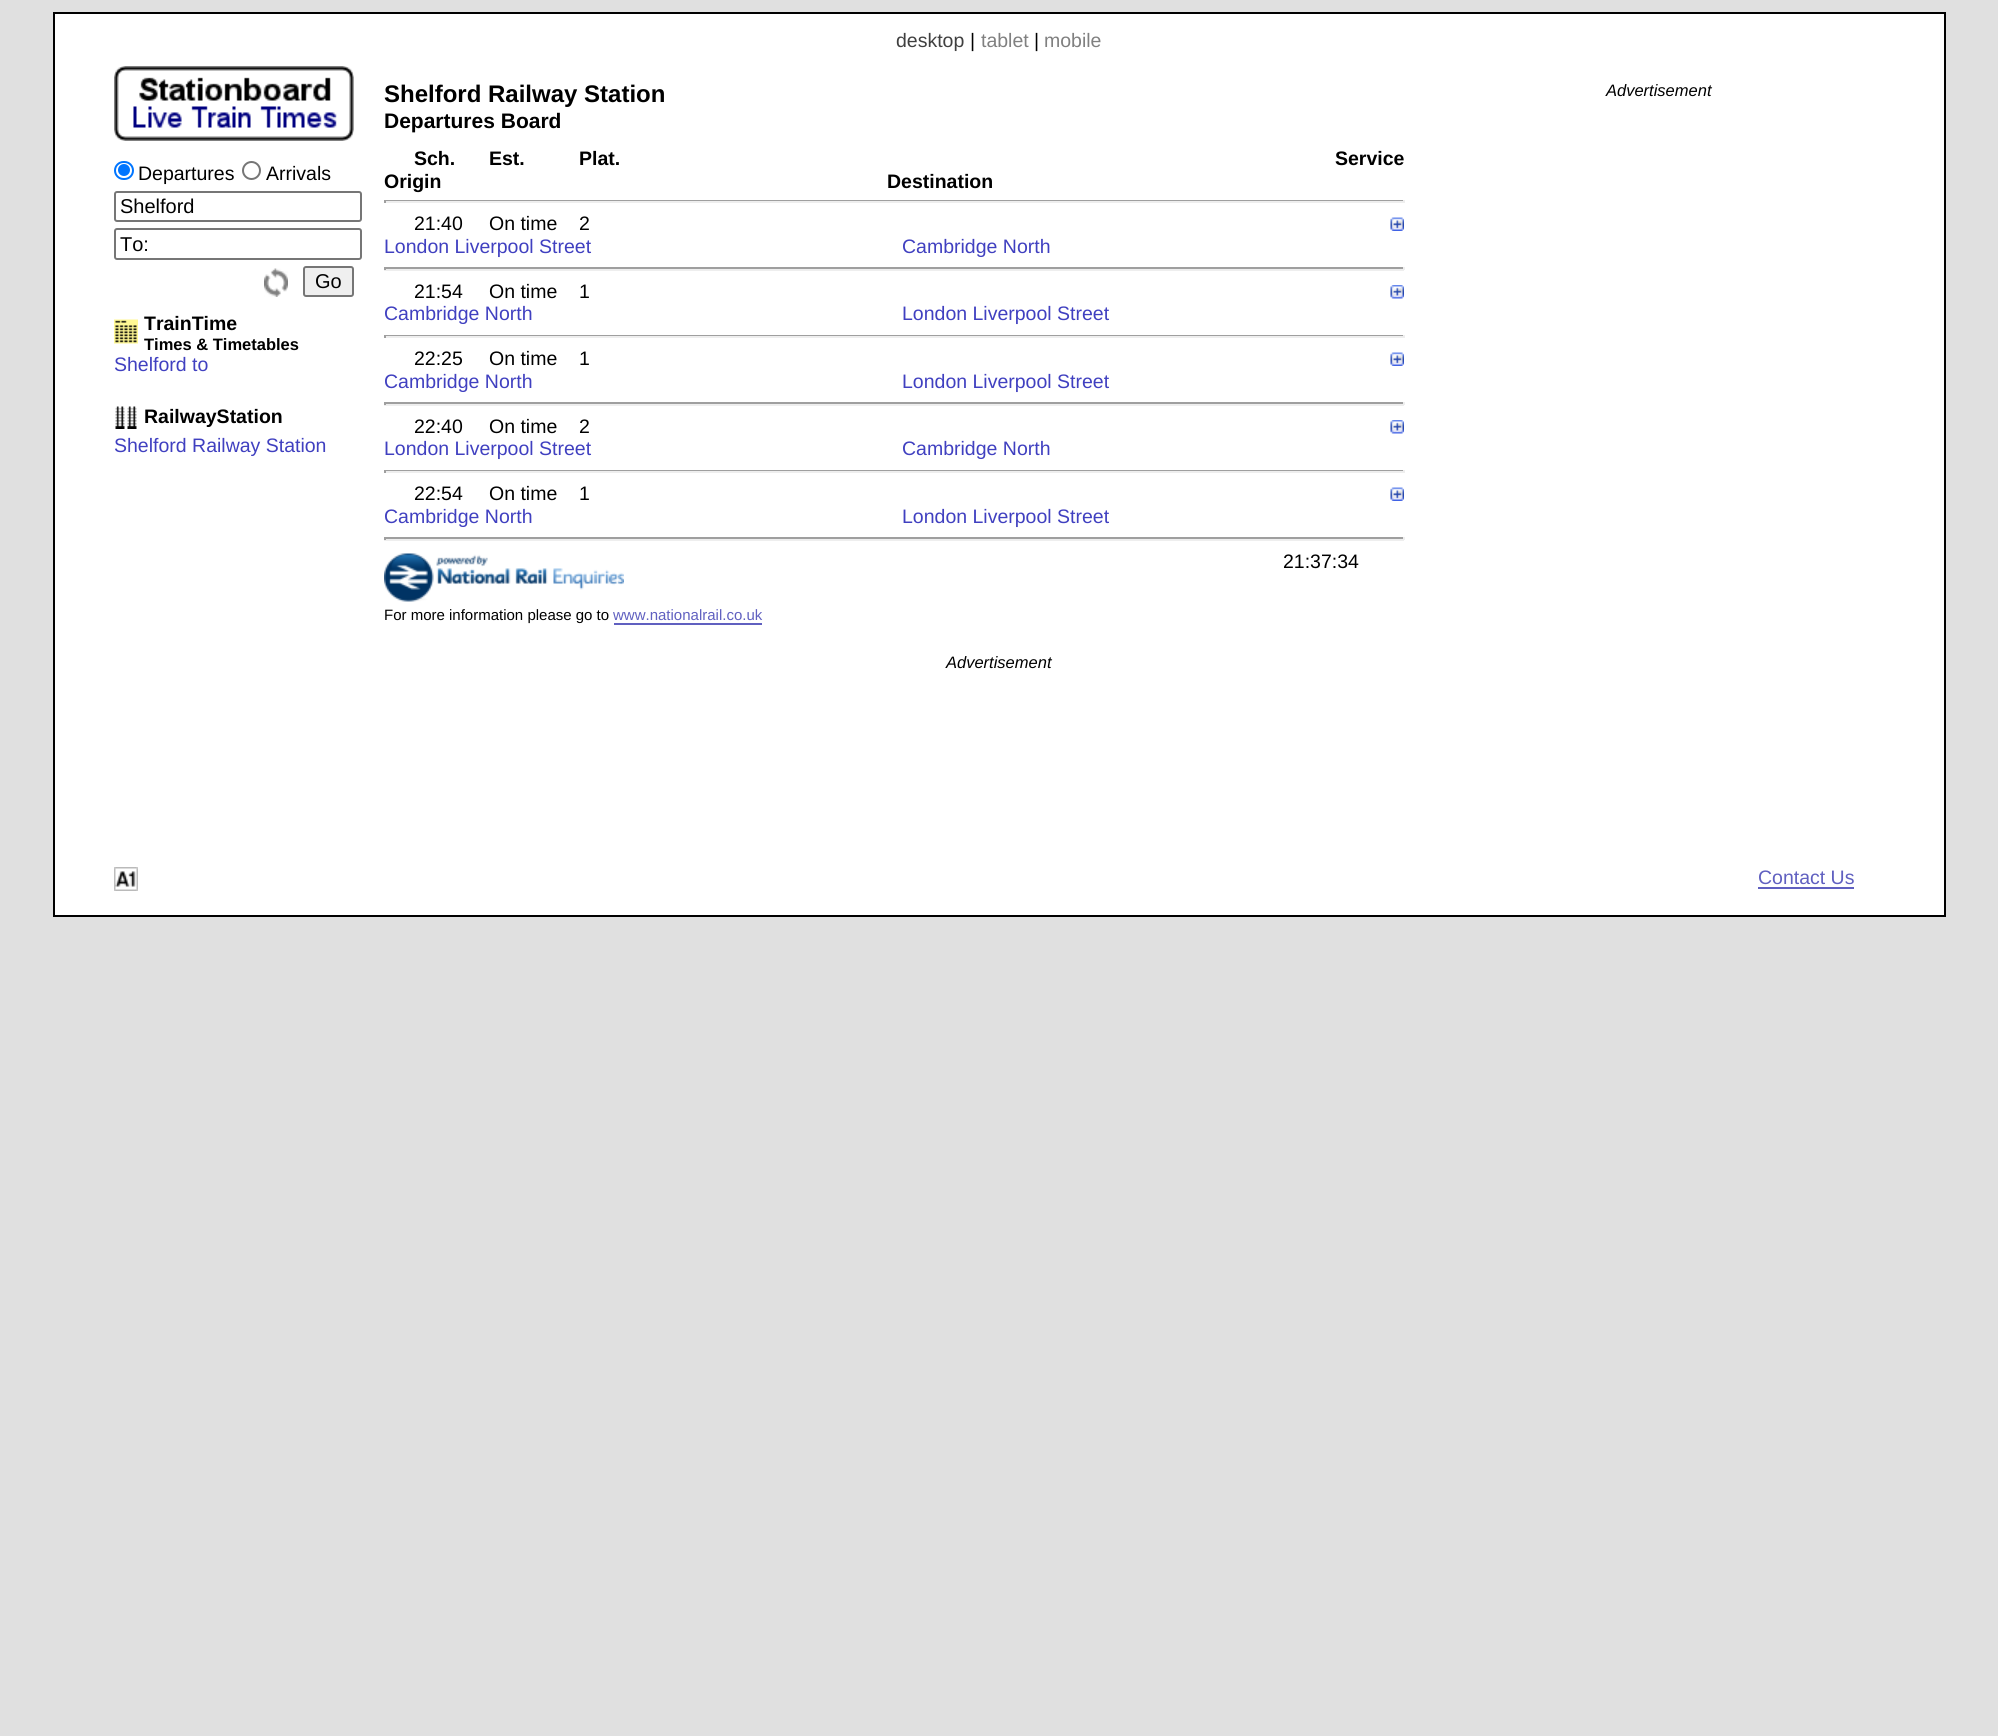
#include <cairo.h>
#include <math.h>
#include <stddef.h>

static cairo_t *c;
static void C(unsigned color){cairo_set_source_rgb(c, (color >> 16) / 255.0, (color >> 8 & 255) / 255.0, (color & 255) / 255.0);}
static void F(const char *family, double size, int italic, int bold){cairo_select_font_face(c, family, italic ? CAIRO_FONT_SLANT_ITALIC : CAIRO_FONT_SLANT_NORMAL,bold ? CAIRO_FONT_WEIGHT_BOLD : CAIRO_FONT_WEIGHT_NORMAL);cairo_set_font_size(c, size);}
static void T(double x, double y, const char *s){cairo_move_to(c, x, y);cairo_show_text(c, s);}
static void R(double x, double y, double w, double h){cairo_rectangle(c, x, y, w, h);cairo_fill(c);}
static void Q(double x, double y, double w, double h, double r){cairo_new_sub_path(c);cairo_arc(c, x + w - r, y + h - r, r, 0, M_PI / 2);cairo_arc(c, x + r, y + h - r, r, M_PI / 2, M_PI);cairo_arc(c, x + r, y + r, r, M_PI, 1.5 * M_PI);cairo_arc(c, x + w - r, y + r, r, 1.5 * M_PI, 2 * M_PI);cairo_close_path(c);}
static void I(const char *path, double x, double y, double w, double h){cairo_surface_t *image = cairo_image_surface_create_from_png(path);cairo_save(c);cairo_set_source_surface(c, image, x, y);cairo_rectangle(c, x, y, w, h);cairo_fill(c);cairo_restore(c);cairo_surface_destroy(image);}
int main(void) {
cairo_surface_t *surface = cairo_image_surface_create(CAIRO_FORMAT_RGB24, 1998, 1736);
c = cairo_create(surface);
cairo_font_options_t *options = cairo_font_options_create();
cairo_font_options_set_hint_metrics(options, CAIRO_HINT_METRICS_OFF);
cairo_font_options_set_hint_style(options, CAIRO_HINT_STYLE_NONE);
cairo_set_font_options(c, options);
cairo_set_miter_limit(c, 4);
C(0xe0e0e0);
cairo_paint(c);
C(0xffffff);
cairo_rectangle(c,54,13,1891,903);
cairo_fill_preserve(c);
C(0x000000);
cairo_stroke(c);
F("Liberation Sans",19.5,0,0);
C(0x404040);
T(896,47,"desktop");
C(0x000000);
T(970,47,"|");
C(0x808080);
T(981,47,"tablet");
C(0x000000);
T(1034,47,"|");
C(0x808080);
T(1044,47,"mobile");
F("Liberation Sans",24,0,1);
C(0x000000);
T(384,102,"Shelford Railway Station");
F("Liberation Sans",21,0,1);
T(384,128,"Departures Board");
F("Liberation Sans",19.5,0,1);
T(414,165,"Sch.");
T(489,165,"Est.");
T(579,165,"Plat.");
T(1335,165,"Service");
T(384,188,"Origin");
T(887,188,"Destination");
C(0x9f9f9f);
R(384,200,1020,1);
C(0xeeeeee);
R(1403,200,2,3);
R(384,201,1020,2);
C(0x9f9f9f);
R(384,200,2,3);
F("Liberation Sans",19.5,0,0);
C(0x000000);
T(414,230,"21:40");
T(489,230,"On time");
T(579,230,"2");
I("1.png",1390,217,14,14);
C(0x4040c0);
T(384,253,"London Liverpool Street");
T(902,253,"Cambridge North");
C(0x9f9f9f);
R(384,267,1020,2);
C(0xeeeeee);
R(1403,267,2,3);
R(384,269,1020,2);
C(0x9f9f9f);
R(384,267,2,3);
C(0x000000);
T(414,298,"21:54");
T(489,298,"On time");
T(579,298,"1");
I("2.png",1390,285,14,14);
C(0x4040c0);
T(384,320,"Cambridge North");
T(902,320,"London Liverpool Street");
C(0x9f9f9f);
R(384,335,1020,1);
C(0xeeeeee);
R(1403,335,2,3);
R(384,336,1020,2);
C(0x9f9f9f);
R(384,335,2,3);
C(0x000000);
T(414,365,"22:25");
T(489,365,"On time");
T(579,365,"1");
I("1.png",1390,352,14,14);
C(0x4040c0);
T(384,388,"Cambridge North");
T(902,388,"London Liverpool Street");
C(0x9f9f9f);
R(384,402,1020,2);
C(0xeeeeee);
R(1403,402,2,3);
R(384,404,1020,2);
C(0x9f9f9f);
R(384,402,2,3);
C(0x000000);
T(414,433,"22:40");
T(489,433,"On time");
T(579,433,"2");
I("2.png",1390,420,14,14);
C(0x4040c0);
T(384,455,"London Liverpool Street");
T(902,455,"Cambridge North");
C(0x9f9f9f);
R(384,470,1020,1);
C(0xeeeeee);
R(1403,470,2,3);
R(384,471,1020,2);
C(0x9f9f9f);
R(384,470,2,3);
C(0x000000);
T(414,500,"22:54");
T(489,500,"On time");
T(579,500,"1");
I("1.png",1390,487,14,14);
C(0x4040c0);
T(384,523,"Cambridge North");
T(902,523,"London Liverpool Street");
C(0x9f9f9f);
R(384,537,1020,2);
C(0xeeeeee);
R(1403,537,2,3);
R(384,539,1020,2);
C(0x9f9f9f);
R(384,537,2,3);
C(0x000000);
T(1283,568,"21:37:34");
I("3.png",384,553,240,49);
F("Liberation Sans",15,0,0);
T(384,620,"For more information please go to");
C(0x6060c0);
T(613,620,"www.nationalrail.co.uk");
R(614,623,148,2);
F("Liberation Sans",16.5,1,0);
C(0x000000);
T(1606,96,"Advertisement");
I("4.png",114,66,240,75);
Q(115,162,18,17,8.5);
C(0x0075ff);
cairo_stroke(c);
cairo_arc(c,124,170,6,0,2 * M_PI);
cairo_fill(c);
F("Liberation Sans",19.5,0,0);
C(0x000000);
T(138,180,"Departures");
cairo_new_path(c);
cairo_arc(c,251.5,170.5,8.5,0,2 * M_PI);
C(0x767676);
cairo_stroke(c);
C(0x000000);
T(266,180,"Arrivals");
Q(115,192,246,29,2);
C(0x767676);
cairo_stroke(c);
F("Liberation Sans",20,0,0);
C(0x000000);
T(120,213,"Shelford");
Q(115,229,246,30,2);
C(0x767676);
cairo_stroke(c);
C(0x000000);
T(120,251,"To:");
I("5.png",264,268,24,29);
C(0xefefef);
Q(304,267,49,29,2);
cairo_fill_preserve(c);
C(0x767676);
cairo_stroke(c);
C(0x000000);
T(315,288,"Go");
I("6.png",114,319,24,25);
F("Liberation Sans",19.5,0,1);
T(144,330,"TrainTime");
F("Liberation Sans",16.5,0,1);
T(144,350,"Times & Timetables");
F("Liberation Sans",19.5,0,0);
C(0x4040c0);
T(114,371,"Shelford to");
I("7.png",115,406,22,23);
F("Liberation Sans",19.5,0,1);
C(0x000000);
T(144,423,"RailwayStation");
F("Liberation Sans",19.5,0,0);
C(0x4040c0);
T(114,452,"Shelford Railway Station");
F("Liberation Sans",16.5,1,0);
C(0x000000);
T(946,668,"Advertisement");
I("8.png",114,867,24,24);
F("Liberation Sans",19.5,0,0);
C(0x6060c0);
T(1758,884,"Contact Us");
R(1758,887,96,2);
cairo_surface_write_to_png(surface, "o.png");
cairo_font_options_destroy(options);
cairo_destroy(c);
cairo_surface_destroy(surface);
return 0;
}
